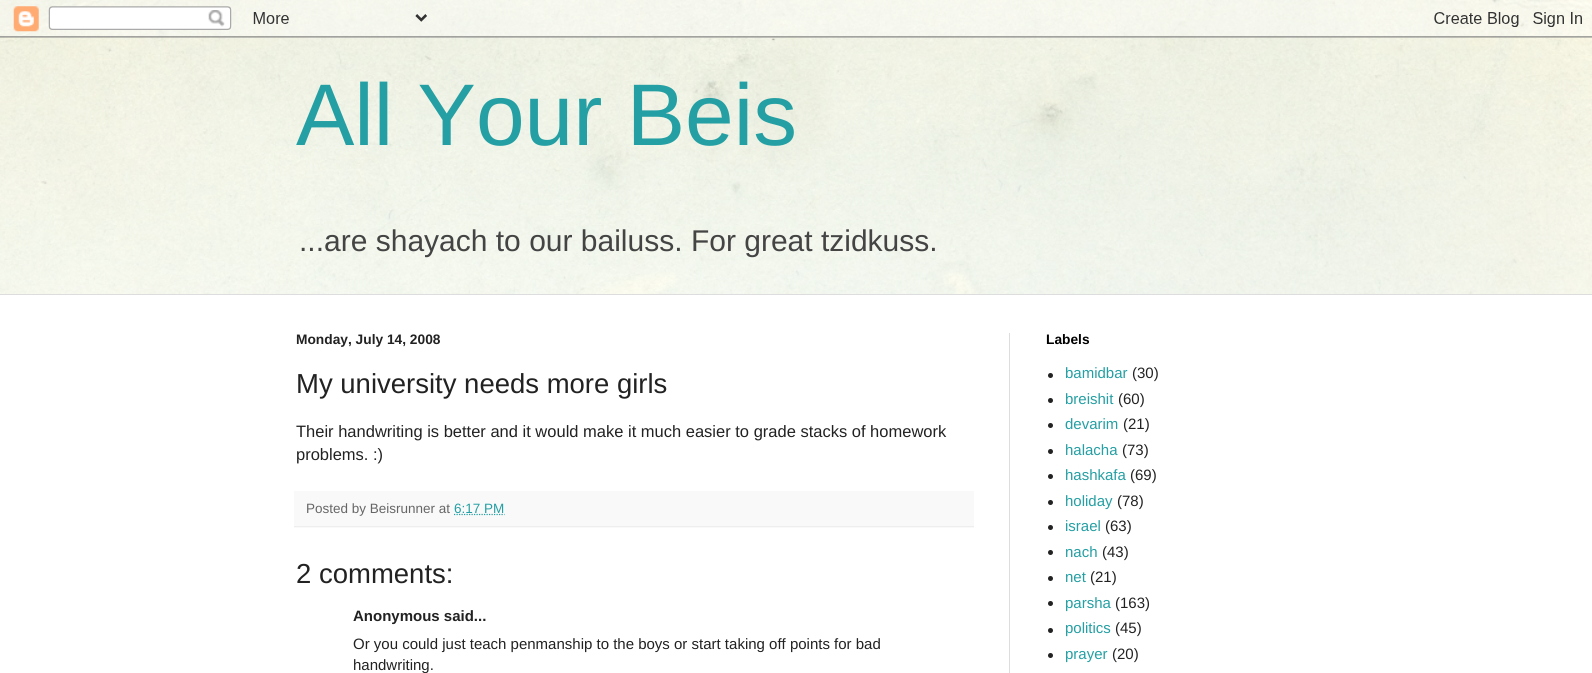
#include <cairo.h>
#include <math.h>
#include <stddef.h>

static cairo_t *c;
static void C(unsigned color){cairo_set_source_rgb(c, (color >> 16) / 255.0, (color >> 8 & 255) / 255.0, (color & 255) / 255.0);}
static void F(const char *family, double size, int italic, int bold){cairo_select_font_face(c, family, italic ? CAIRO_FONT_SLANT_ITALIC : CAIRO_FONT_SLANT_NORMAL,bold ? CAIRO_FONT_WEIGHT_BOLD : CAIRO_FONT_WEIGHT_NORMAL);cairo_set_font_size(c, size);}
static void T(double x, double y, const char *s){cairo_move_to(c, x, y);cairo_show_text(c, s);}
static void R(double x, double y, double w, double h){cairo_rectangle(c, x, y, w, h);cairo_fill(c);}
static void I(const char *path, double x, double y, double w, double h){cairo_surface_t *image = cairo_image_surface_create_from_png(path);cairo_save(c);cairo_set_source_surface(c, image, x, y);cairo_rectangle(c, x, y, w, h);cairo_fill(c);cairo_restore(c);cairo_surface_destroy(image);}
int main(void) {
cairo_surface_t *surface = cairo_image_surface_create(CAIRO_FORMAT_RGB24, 1592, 673);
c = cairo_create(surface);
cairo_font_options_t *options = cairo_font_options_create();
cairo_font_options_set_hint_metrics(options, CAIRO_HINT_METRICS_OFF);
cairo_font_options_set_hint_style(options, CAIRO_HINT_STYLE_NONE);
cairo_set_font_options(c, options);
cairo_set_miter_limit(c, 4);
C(0xffffff);
cairo_paint(c);
I("1.png",0,0,1592,294);
I("2.png",0,0,1592,294);
I("3.png",0,0,1592,38);
F("Liberation Sans",87.5,0,0);
C(0x249fa3);
T(296,145,"All Your Beis");
F("Liberation Sans",30,0,0);
C(0x444444);
T(299,251,"...are shayach to our bailuss. For great tzidkuss.");
C(0xdddddd);
R(0,294,1592,1);
R(1009,333,1,340);
F("Liberation Sans",13.75,0,1);
C(0x222222);
T(296,344,"Monday, July 14, 2008");
F("Liberation Sans",27.5,0,0);
T(296,393,"My university needs more girls");
F("Liberation Sans",16.5,0,0);
T(296,437,"Their handwriting is better and it would make it much easier to grade stacks of homework");
T(296,460,"problems. :)");
C(0xf9f9f9);
R(294,491,680,37);
C(0xeeeeee);
R(294,526,680,1);
F("Liberation Sans",13.5,0,0);
C(0x666666);
T(306,513,"Posted by Beisrunner at");
cairo_new_path(c);
cairo_move_to(c,454,514.5);
cairo_line_to(c,504.5,514.5);
C(0x249fa3);
cairo_set_line_width(c,1.2);
cairo_set_dash(c,(double[]){1.25,1.25},2,0);
cairo_stroke(c);
T(454,513,"6:17 PM");
F("Liberation Sans",27.5,0,0);
C(0x222222);
T(296,583,"2 comments:");
F("Liberation Sans",15,0,1);
T(353,621,"Anonymous said...");
F("Liberation Sans",15,0,0);
T(353,649,"Or you could just teach penmanship to the boys or start taking off points for bad");
T(353,670,"handwriting.");
F("Liberation Sans",13.75,0,1);
C(0x000000);
T(1046,344,"Labels");
C(0x222222);
cairo_new_path(c);
cairo_arc(c,1050.5,375.5,2.5,0,2 * M_PI);
cairo_fill(c);
F("Liberation Sans",15,0,0);
C(0x249fa3);
T(1065,378,"bamidbar");
C(0x222222);
T(1132,378,"(30)");
cairo_new_path(c);
cairo_arc(c,1050.5,400.5,2.5,0,2 * M_PI);
cairo_fill(c);
C(0x249fa3);
T(1065,404,"breishit");
C(0x222222);
T(1118,404,"(60)");
cairo_new_path(c);
cairo_arc(c,1050.5,425.5,2.5,0,2 * M_PI);
cairo_fill(c);
C(0x249fa3);
T(1065,429,"devarim");
C(0x222222);
T(1123,429,"(21)");
cairo_new_path(c);
cairo_arc(c,1050.5,451.5,2.5,0,2 * M_PI);
cairo_fill(c);
C(0x249fa3);
T(1065,455,"halacha");
C(0x222222);
T(1122,455,"(73)");
cairo_new_path(c);
cairo_arc(c,1050.5,476.5,2.5,0,2 * M_PI);
cairo_fill(c);
C(0x249fa3);
T(1065,480,"hashkafa");
C(0x222222);
T(1130,480,"(69)");
cairo_new_path(c);
cairo_arc(c,1050.5,502.5,2.5,0,2 * M_PI);
cairo_fill(c);
C(0x249fa3);
T(1065,506,"holiday");
C(0x222222);
T(1117,506,"(78)");
cairo_new_path(c);
cairo_arc(c,1050.5,527.5,2.5,0,2 * M_PI);
cairo_fill(c);
C(0x249fa3);
T(1065,531,"israel");
C(0x222222);
T(1105,531,"(63)");
cairo_new_path(c);
cairo_arc(c,1050.5,552.5,2.5,0,2 * M_PI);
cairo_fill(c);
C(0x249fa3);
T(1065,557,"nach");
C(0x222222);
T(1102,557,"(43)");
cairo_new_path(c);
cairo_arc(c,1050.5,578.5,2.5,0,2 * M_PI);
cairo_fill(c);
C(0x249fa3);
T(1065,582,"net");
C(0x222222);
T(1090,582,"(21)");
cairo_new_path(c);
cairo_arc(c,1050.5,603.5,2.5,0,2 * M_PI);
cairo_fill(c);
C(0x249fa3);
T(1065,608,"parsha");
C(0x222222);
T(1115,608,"(163)");
cairo_new_path(c);
cairo_arc(c,1050.5,630.5,2.5,0,2 * M_PI);
cairo_fill(c);
C(0x249fa3);
T(1065,633,"politics");
C(0x222222);
T(1115,633,"(45)");
cairo_new_path(c);
cairo_arc(c,1050.5,655.5,2.5,0,2 * M_PI);
cairo_fill(c);
C(0x249fa3);
T(1065,659,"prayer");
C(0x222222);
T(1112,659,"(20)");
cairo_surface_write_to_png(surface, "o.png");
cairo_font_options_destroy(options);
cairo_destroy(c);
cairo_surface_destroy(surface);
return 0;
}
